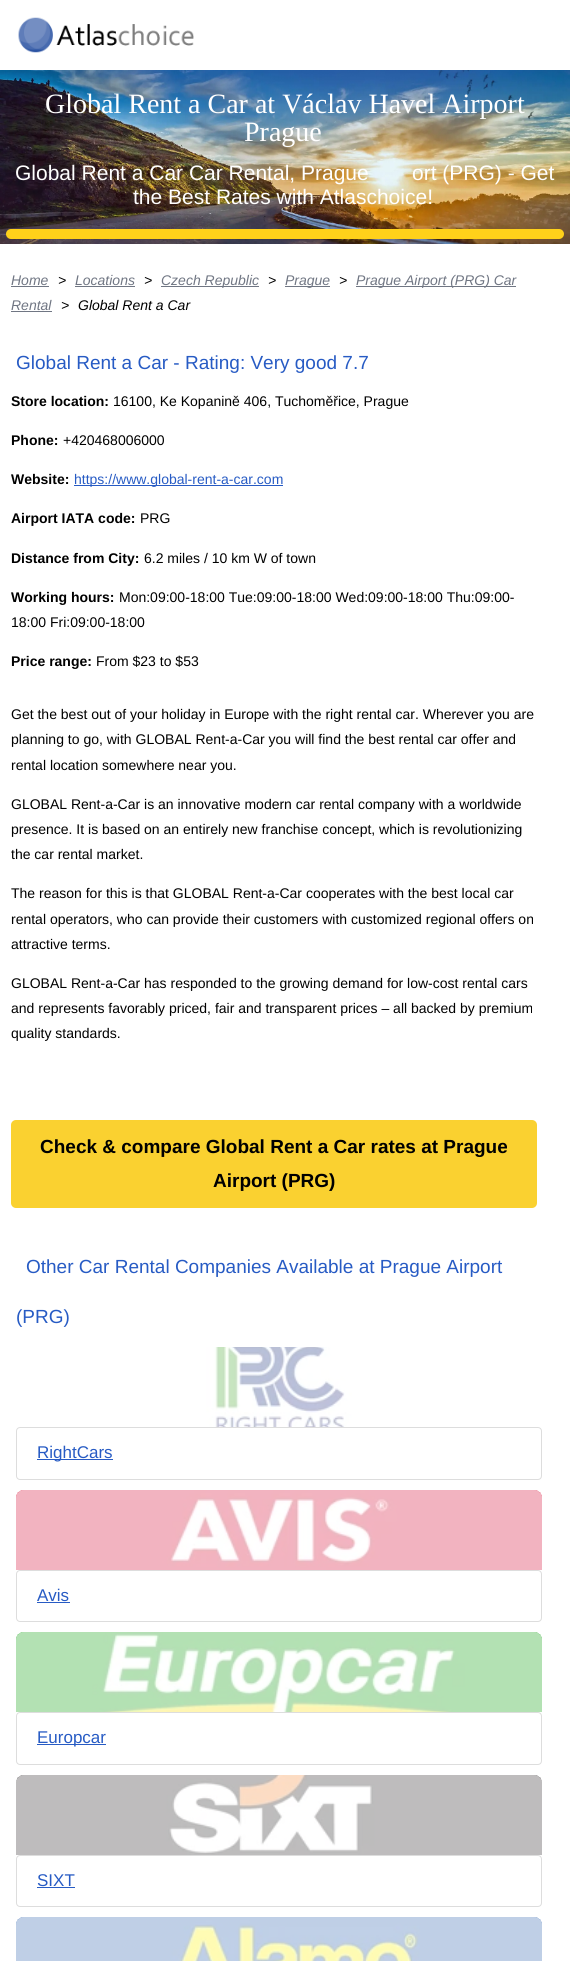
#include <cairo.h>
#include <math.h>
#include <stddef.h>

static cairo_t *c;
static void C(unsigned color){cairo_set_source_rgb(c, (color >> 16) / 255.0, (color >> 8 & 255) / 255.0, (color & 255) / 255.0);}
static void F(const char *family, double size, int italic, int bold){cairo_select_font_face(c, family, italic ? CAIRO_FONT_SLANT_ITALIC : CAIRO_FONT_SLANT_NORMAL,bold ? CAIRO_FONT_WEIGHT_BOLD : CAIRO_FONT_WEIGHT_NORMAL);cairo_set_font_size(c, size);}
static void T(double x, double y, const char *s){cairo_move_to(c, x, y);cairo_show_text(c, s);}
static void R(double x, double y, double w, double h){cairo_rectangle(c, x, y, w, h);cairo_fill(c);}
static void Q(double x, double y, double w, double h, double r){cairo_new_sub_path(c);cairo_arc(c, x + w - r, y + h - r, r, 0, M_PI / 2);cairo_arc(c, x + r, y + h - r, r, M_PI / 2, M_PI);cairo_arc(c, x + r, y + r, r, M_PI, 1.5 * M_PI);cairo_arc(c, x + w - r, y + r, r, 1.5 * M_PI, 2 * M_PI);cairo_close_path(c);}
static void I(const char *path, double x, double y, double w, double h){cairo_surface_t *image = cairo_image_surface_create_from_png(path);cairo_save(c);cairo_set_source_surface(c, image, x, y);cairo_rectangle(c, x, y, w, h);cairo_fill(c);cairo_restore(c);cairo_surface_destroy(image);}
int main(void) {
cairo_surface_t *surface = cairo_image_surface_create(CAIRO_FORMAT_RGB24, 570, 1961);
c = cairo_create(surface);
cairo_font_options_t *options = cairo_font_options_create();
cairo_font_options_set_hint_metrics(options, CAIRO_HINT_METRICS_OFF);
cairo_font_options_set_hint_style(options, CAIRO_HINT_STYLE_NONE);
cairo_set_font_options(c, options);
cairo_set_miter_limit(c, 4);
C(0xffffff);
cairo_paint(c);
I("1.png",18,17,176,36);
I("2.png",0,70,570,174);
F("Liberation Serif",28,0,0);
C(0xffffff);
T(45,113,"Global Rent a Car at Václav Havel Airport");
T(244,141,"Prague");
F("Liberation Sans",21,0,0);
T(15,180,"Global Rent a Car Car Rental, Prague");
T(412,180,"ort (PRG) - Get");
T(133,204,"the Best Rates with Atlaschoice!");
C(0xffd11a);
Q(6,229,558,10,5);
cairo_fill(c);
F("Liberation Sans",14,1,0);
C(0x707683);
T(11,285,"Home");
R(11,286,38,1);
C(0x000000);
T(58,285,">");
C(0x707683);
T(75,285,"Locations");
R(75,286,60,1);
C(0x000000);
T(144,285,">");
C(0x707683);
R(161,286,98,1);
T(161,285,"Czech Republic");
C(0x000000);
T(268,285,">");
C(0x707683);
R(285,286,45,1);
T(285,285,"Prague");
C(0x000000);
T(339,285,">");
C(0x707683);
R(356,286,160,1);
T(356,285,"Prague Airport (PRG) Car");
T(11,310,"Rental");
R(11,311,41,1);
C(0x000000);
T(61,310,">");
T(78,310,"Global Rent a Car");
F("Liberation Sans",19,0,0);
C(0x275bc4);
T(16,369,"Global Rent a Car - Rating: Very good 7.7");
F("Liberation Sans",14,0,1);
C(0x000000);
T(11,406,"Store location:");
F("Liberation Sans",14,0,0);
T(113,406,"16100, Ke Kopanině 406, Tuchoměřice, Prague");
F("Liberation Sans",14,0,1);
T(11,445,"Phone:");
F("Liberation Sans",14,0,0);
T(63,445,"+420468006000");
F("Liberation Sans",14,0,1);
T(11,484,"Website:");
C(0x275bc4);
R(74,485,209,1);
F("Liberation Sans",14,0,0);
T(74,484,"https://www.global-rent-a-car.com");
F("Liberation Sans",14,0,1);
C(0x000000);
T(11,523,"Airport IATA code:");
F("Liberation Sans",14,0,0);
T(140,523,"PRG");
F("Liberation Sans",14,0,1);
T(11,563,"Distance from City:");
F("Liberation Sans",14,0,0);
T(144,563,"6.2 miles / 10 km W of town");
F("Liberation Sans",14,0,1);
T(11,602,"Working hours:");
F("Liberation Sans",14,0,0);
T(119,602,"Mon:09:00-18:00 Tue:09:00-18:00 Wed:09:00-18:00 Thu:09:00-");
T(11,627,"18:00 Fri:09:00-18:00");
F("Liberation Sans",14,0,1);
T(11,666,"Price range:");
F("Liberation Sans",14,0,0);
T(96,666,"From $23 to $53");
T(11,719,"Get the best out of your holiday in Europe with the right rental car. Wherever you are");
T(11,744,"planning to go, with GLOBAL Rent-a-Car you will find the best rental car offer and");
T(11,770,"rental location somewhere near you.");
T(11,809,"GLOBAL Rent-a-Car is an innovative modern car rental company with a worldwide");
T(11,834,"presence. It is based on an entirely new franchise concept, which is revolutionizing");
T(11,859,"the car rental market.");
T(11,898,"The reason for this is that GLOBAL Rent-a-Car cooperates with the best local car");
T(11,924,"rental operators, who can provide their customers with customized regional offers on");
T(11,949,"attractive terms.");
T(11,988,"GLOBAL Rent-a-Car has responded to the growing demand for low-cost rental cars");
T(11,1013,"and represents favorably priced, fair and transparent prices – all backed by premium");
T(11,1038,"quality standards.");
C(0xfad130);
Q(11,1120,526,88,5);
cairo_fill(c);
F("Liberation Sans",19,0,1);
C(0x000000);
T(40,1153,"Check & compare Global Rent a Car rates at Prague");
T(213,1187,"Airport (PRG)");
F("Liberation Sans",19,0,0);
C(0x275bc4);
T(26,1273,"Other Car Rental Companies Available at Prague Airport");
T(16,1323,"(PRG)");
I("3.png",206,1347,146,80);
cairo_set_source_rgba(c,1,1,1,0.7);
cairo_new_path(c);
cairo_move_to(c,24,1347);
cairo_line_to(c,534,1347);
cairo_curve_to(c,538.5,1347,542,1350.5,542,1355);
cairo_line_to(c,542,1427);
cairo_line_to(c,16,1427);
cairo_line_to(c,16,1355);
cairo_curve_to(c,16,1350.5,19.5,1347,24,1347);
cairo_close_path(c);
cairo_fill(c);
Q(16.5,1427.5,525,52,3.5);
C(0xdddddd);
cairo_set_line_width(c,1);
cairo_stroke(c);
C(0x275bc4);
R(37,1459,76,1);
F("Liberation Sans",17,0,0);
T(37,1458,"RightCars");
I("4.png",16,1490,526,80);
cairo_set_source_rgba(c,1,1,1,0.7);
cairo_new_path(c);
cairo_move_to(c,24,1490);
cairo_line_to(c,534,1490);
cairo_curve_to(c,538.5,1490,542,1493.5,542,1498);
cairo_line_to(c,542,1570);
cairo_line_to(c,16,1570);
cairo_line_to(c,16,1498);
cairo_curve_to(c,16,1493.5,19.5,1490,24,1490);
cairo_close_path(c);
cairo_fill(c);
Q(16.5,1570.5,525,51,3.5);
C(0xdddddd);
cairo_stroke(c);
C(0x275bc4);
T(37,1601,"Avis");
R(37,1602,33,1);
I("5.png",16,1632,526,80);
cairo_set_source_rgba(c,1,1,1,0.7);
cairo_new_path(c);
cairo_move_to(c,24,1632);
cairo_line_to(c,534,1632);
cairo_curve_to(c,538.5,1632,542,1635.5,542,1640);
cairo_line_to(c,542,1712);
cairo_line_to(c,16,1712);
cairo_line_to(c,16,1640);
cairo_curve_to(c,16,1635.5,19.5,1632,24,1632);
cairo_close_path(c);
cairo_fill(c);
Q(16.5,1712.5,525,52,3.5);
C(0xdddddd);
cairo_stroke(c);
C(0x275bc4);
R(37,1744,69,1);
T(37,1743,"Europcar");
I("6.png",16,1775,526,80);
cairo_set_source_rgba(c,1,1,1,0.7);
cairo_new_path(c);
cairo_move_to(c,24,1775);
cairo_line_to(c,534,1775);
cairo_curve_to(c,538.5,1775,542,1778.5,542,1783);
cairo_line_to(c,542,1855);
cairo_line_to(c,16,1855);
cairo_line_to(c,16,1783);
cairo_curve_to(c,16,1778.5,19.5,1775,24,1775);
cairo_close_path(c);
cairo_fill(c);
Q(16.5,1855.5,525,51,3.5);
C(0xdddddd);
cairo_stroke(c);
C(0x275bc4);
T(37,1886,"SIXT");
R(37,1887,38,1);
I("7.png",16,1917,526,44);
cairo_set_source_rgba(c,1,1,1,0.7);
cairo_new_path(c);
cairo_move_to(c,24,1917);
cairo_line_to(c,534,1917);
cairo_curve_to(c,538.5,1917,542,1920.5,542,1925);
cairo_line_to(c,542,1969);
cairo_line_to(c,16,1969);
cairo_line_to(c,16,1925);
cairo_curve_to(c,16,1920.5,19.5,1917,24,1917);
cairo_close_path(c);
cairo_fill(c);
cairo_surface_write_to_png(surface, "o.png");
cairo_font_options_destroy(options);
cairo_destroy(c);
cairo_surface_destroy(surface);
return 0;
}
